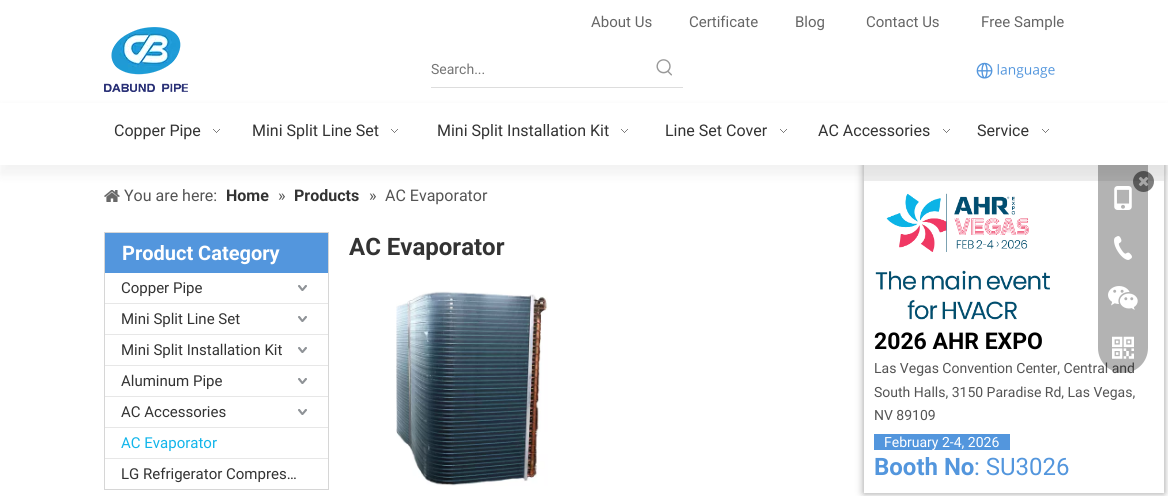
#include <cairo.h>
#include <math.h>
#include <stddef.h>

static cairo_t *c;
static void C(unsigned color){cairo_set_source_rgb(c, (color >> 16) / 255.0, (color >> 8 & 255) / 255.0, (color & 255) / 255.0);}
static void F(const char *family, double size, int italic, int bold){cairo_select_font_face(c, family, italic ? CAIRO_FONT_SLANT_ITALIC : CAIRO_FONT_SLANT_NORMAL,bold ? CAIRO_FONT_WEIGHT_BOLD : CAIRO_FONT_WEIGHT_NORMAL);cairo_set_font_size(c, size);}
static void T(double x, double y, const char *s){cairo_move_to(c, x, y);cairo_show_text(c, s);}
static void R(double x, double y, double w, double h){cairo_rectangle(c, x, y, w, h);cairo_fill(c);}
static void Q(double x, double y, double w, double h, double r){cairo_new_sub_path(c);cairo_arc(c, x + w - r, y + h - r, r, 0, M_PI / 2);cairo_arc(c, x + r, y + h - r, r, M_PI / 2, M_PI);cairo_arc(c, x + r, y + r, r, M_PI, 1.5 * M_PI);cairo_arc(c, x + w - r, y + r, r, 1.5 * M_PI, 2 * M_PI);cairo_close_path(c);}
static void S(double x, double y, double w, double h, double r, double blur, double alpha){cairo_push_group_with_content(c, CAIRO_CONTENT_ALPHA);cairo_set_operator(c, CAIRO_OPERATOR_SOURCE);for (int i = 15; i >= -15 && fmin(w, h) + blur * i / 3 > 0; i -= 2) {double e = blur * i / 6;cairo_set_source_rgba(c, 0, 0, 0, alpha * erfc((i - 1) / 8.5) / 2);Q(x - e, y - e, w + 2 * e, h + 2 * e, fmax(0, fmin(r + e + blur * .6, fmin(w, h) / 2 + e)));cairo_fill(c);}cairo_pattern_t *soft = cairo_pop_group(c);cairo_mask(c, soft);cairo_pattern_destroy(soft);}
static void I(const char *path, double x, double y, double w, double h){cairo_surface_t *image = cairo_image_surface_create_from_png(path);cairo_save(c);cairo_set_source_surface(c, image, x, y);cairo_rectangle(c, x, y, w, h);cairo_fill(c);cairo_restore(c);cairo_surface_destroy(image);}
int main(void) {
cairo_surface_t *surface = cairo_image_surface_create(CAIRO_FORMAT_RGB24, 1168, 496);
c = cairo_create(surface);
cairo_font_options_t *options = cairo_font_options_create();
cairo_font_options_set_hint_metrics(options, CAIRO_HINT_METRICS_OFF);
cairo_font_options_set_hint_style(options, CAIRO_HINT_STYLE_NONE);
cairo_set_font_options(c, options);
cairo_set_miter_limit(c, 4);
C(0xffffff);
cairo_paint(c);
I("5.png",104,190,16,12);
C(0x999999);
S(864,161,300,332,0,4,1);
C(0xeeeeee);
R(864,165,300,16);
C(0xffffff);
R(864,181,300,312);
cairo_set_source_rgba(c,0,0,0,0.5);
cairo_arc(c,1143.5,181.5,10.5,0,2 * M_PI);
cairo_fill(c);
I("12.png",1138,176,11,11);
F("Roboto",14,0,0);
C(0x545454);
T(874,373,"Las Vegas Convention Center, Central and");
cairo_set_source_rgba(c,0,0,0,0.3);
Q(1098,123,50,250,25);
cairo_fill(c);
I("8.png",1114,186,18,24);
C(0x000000);
S(0,107,1168,68,0,5,.05);
I("1.png",104,27,84,65);
F("Roboto",15,0,0);
C(0x666666);
T(591,27,"About Us");
T(689,27,"Certificate");
T(795,27,"Blog");
T(866,27,"Contact Us");
T(981,27,"Free Sample");
C(0xdddddd);
R(431,87,252,1);
F("Roboto",14,0,0);
C(0x757575);
T(431,74,"Search...");
I("2.png",656,59,16,17);
I("3.png",976,62,79,17);
C(0xffffff);
R(0,103,1168,62);
F("Roboto",16,0,0);
C(0x333333);
T(114,136,"Copper Pipe");
I("4.png",213,129,7,4);
T(252,136,"Mini Split Line Set");
I("4.png",391,129,7,4);
T(437,136,"Mini Split Installation Kit");
I("4.png",621,129,7,4);
T(665,136,"Line Set Cover");
I("4.png",780,129,7,4);
T(818,136,"AC Accessories");
I("4.png",943,129,7,4);
T(977,136,"Service");
I("4.png",1042,129,7,4);
C(0x545454);
T(124,201,"You are here:");
F("Roboto",16,0,1);
C(0x333333);
T(226,201,"Home");
F("Roboto",16,0,0);
C(0x545454);
T(278,201,"»");
F("Roboto",16,0,1);
C(0x333333);
T(294,201,"Products");
F("Roboto",16,0,0);
C(0x545454);
T(369,201,"»");
T(385,201,"AC Evaporator");
cairo_rectangle(c,104.5,232.5,224,257);
C(0xd6d6d6);
cairo_set_line_width(c,1);
cairo_stroke(c);
C(0x5396dd);
R(105,233,223,40);
F("Roboto",20,0,1);
C(0xffffff);
T(122,260,"Product Category");
F("Roboto",15,0,0);
C(0x333333);
T(121,293,"Copper Pipe");
I("6.png",298,285,9,6);
C(0xe7e7e7);
R(105,303,223,1);
C(0x333333);
T(121,324,"Mini Split Line Set");
I("6.png",298,316,9,6);
C(0xe7e7e7);
R(105,334,223,1);
C(0x333333);
T(121,355,"Mini Split Installation Kit");
I("6.png",298,347,9,6);
C(0xe7e7e7);
R(105,365,223,1);
C(0x333333);
T(121,386,"Aluminum Pipe");
I("6.png",298,378,9,6);
C(0xe7e7e7);
R(105,396,223,1);
C(0x333333);
T(121,417,"AC Accessories");
I("6.png",298,409,9,6);
C(0xe7e7e7);
R(105,427,223,1);
C(0x12b5ea);
T(121,448,"AC Evaporator");
C(0xe7e7e7);
R(105,458,223,1);
C(0x333333);
T(121,479,"LG Refrigerator Compres…");
F("Roboto",24,0,1);
T(349,255,"AC Evaporator");
I("7.png",396,291,152,195);
I("9.png",1114,236,18,24);
I("10.png",1108,286,30,24);
I("11.png",1112,336,22,23);
I("13.png",875,193,175,127);
F("Roboto",23,0,1);
C(0x000000);
T(874,349,"2026 AHR EXPO");
F("Roboto",14,0,0);
C(0x545454);
T(874,397,"South Halls, 3150 Paradise Rd, Las Vegas,");
T(874,420,"NV 89109");
C(0x5396dd);
R(874,434,136,16);
C(0xffffff);
T(884,447,"February 2-4, 2026");
F("Roboto",24,0,1);
C(0x5396dd);
T(874,475,"Booth No");
F("Roboto",24,0,0);
T(974,475,": SU3026");
cairo_surface_write_to_png(surface, "o.png");
cairo_font_options_destroy(options);
cairo_destroy(c);
cairo_surface_destroy(surface);
return 0;
}
